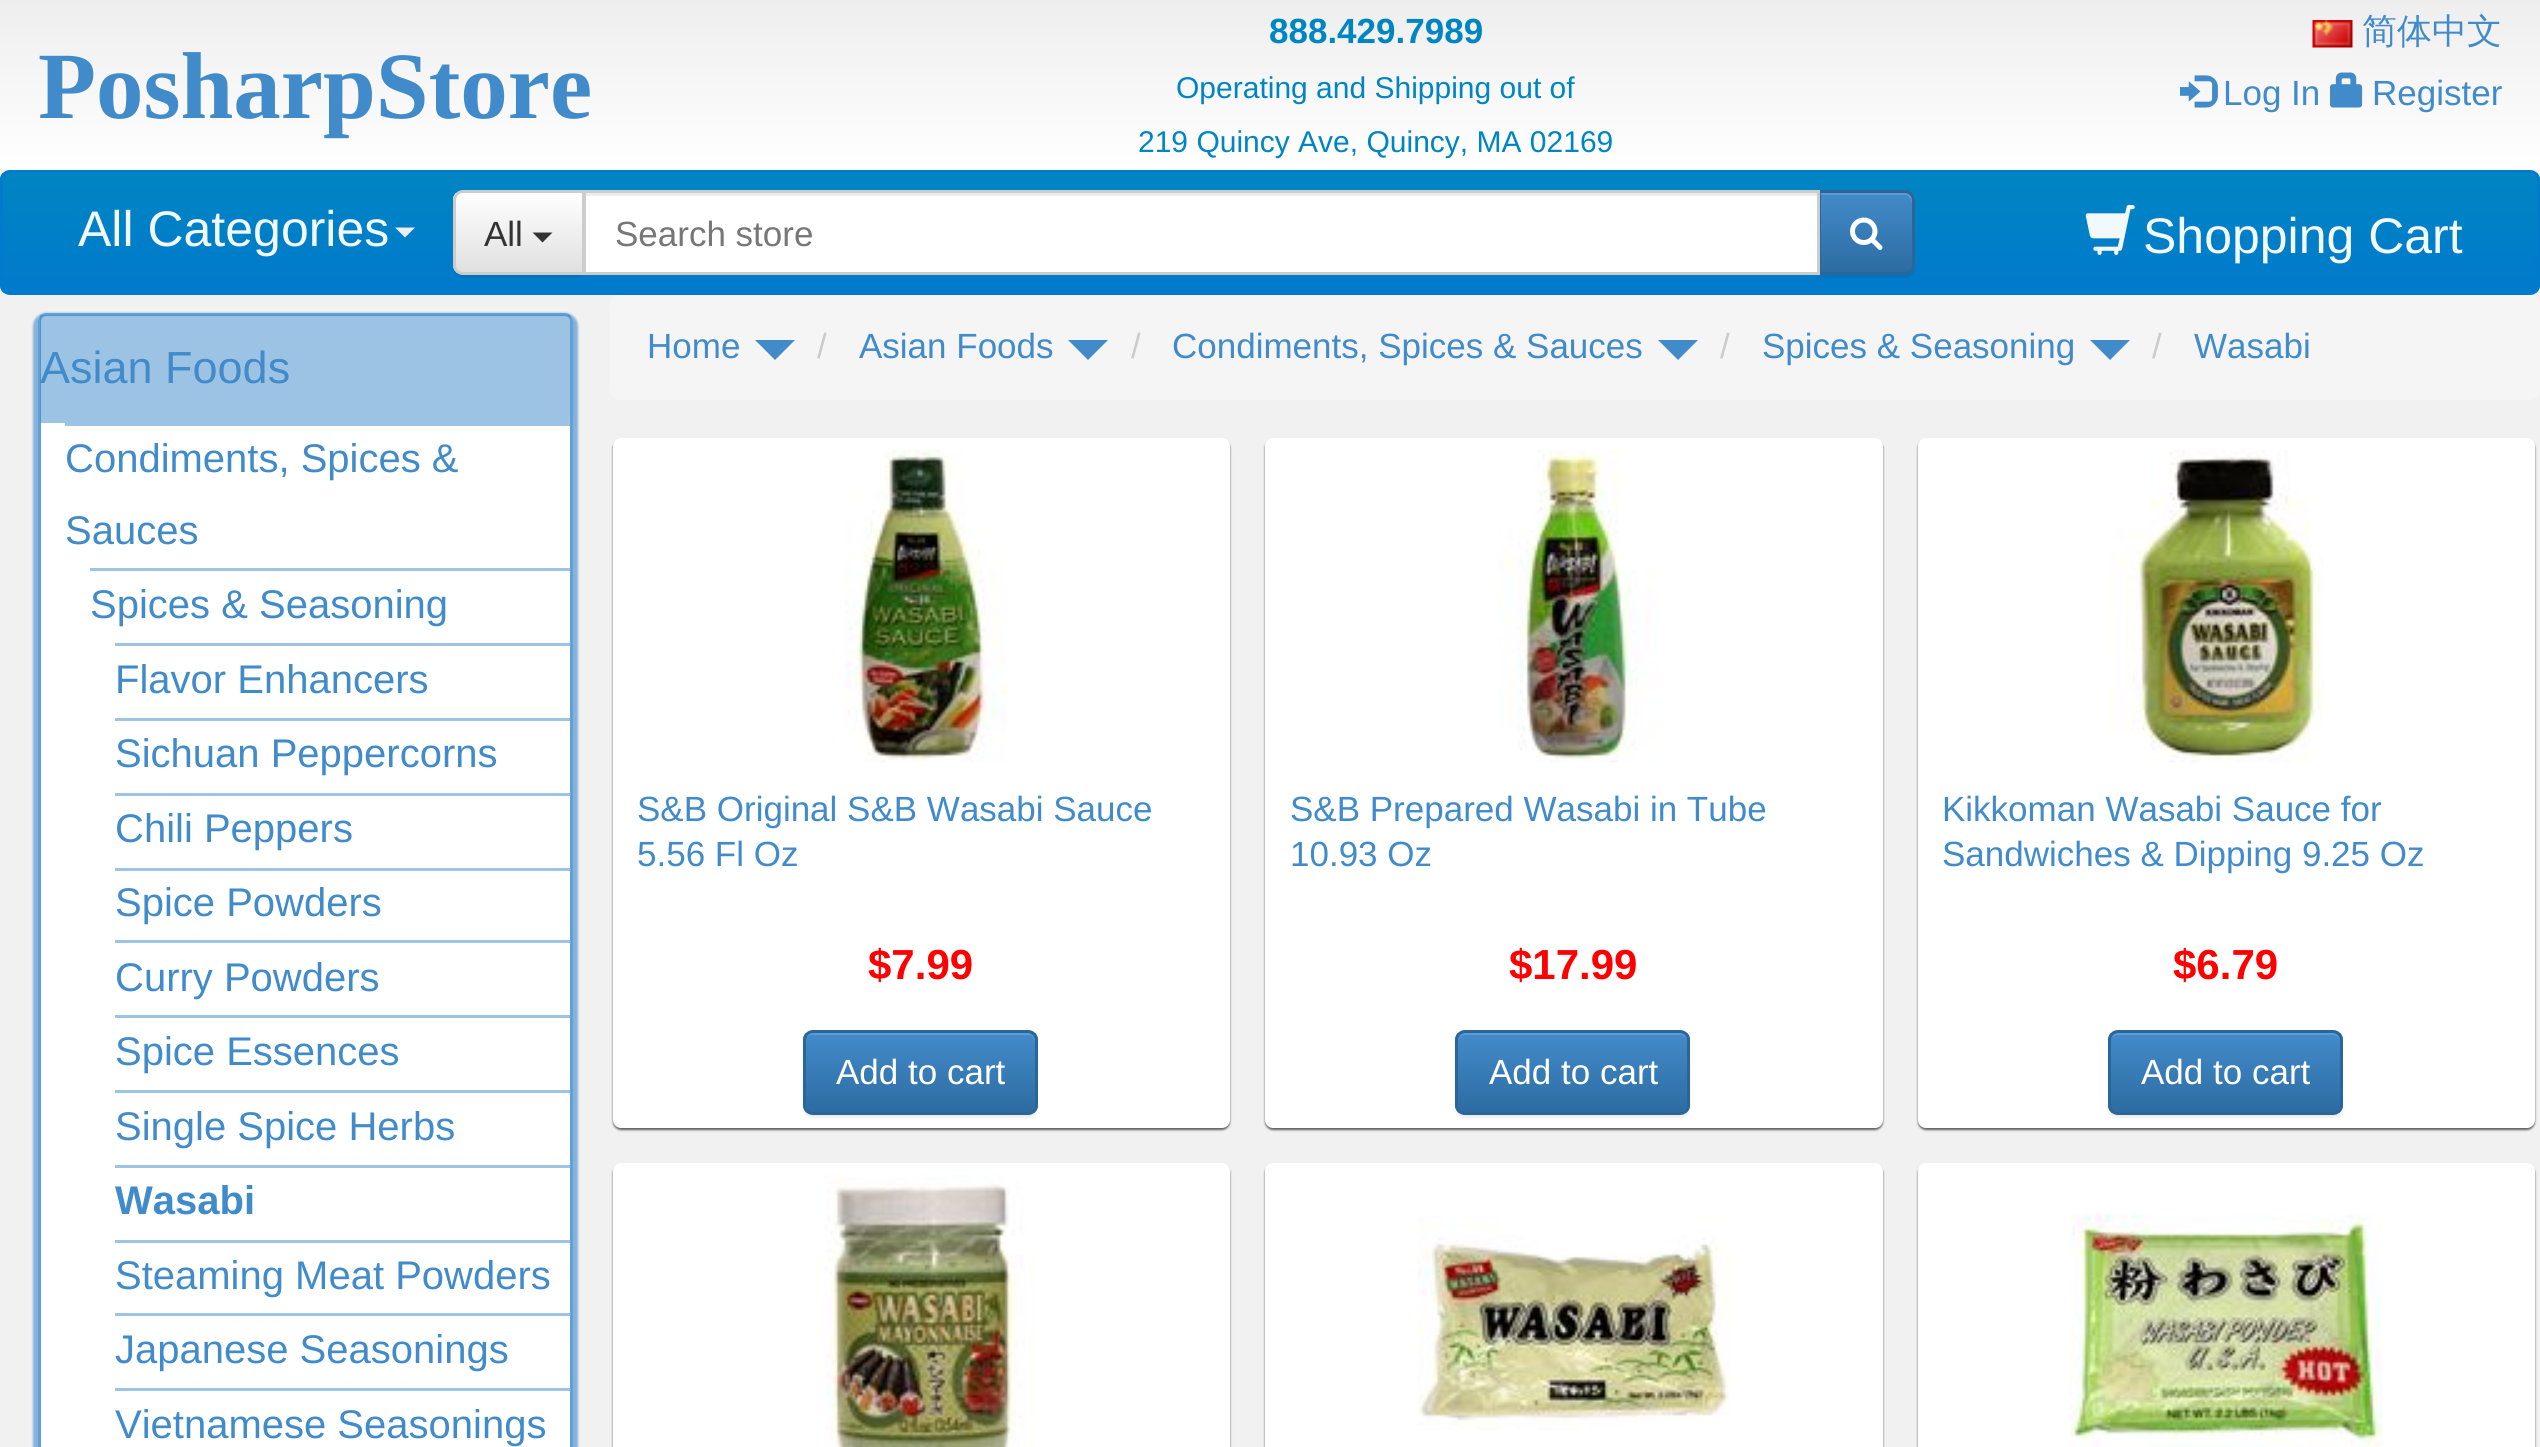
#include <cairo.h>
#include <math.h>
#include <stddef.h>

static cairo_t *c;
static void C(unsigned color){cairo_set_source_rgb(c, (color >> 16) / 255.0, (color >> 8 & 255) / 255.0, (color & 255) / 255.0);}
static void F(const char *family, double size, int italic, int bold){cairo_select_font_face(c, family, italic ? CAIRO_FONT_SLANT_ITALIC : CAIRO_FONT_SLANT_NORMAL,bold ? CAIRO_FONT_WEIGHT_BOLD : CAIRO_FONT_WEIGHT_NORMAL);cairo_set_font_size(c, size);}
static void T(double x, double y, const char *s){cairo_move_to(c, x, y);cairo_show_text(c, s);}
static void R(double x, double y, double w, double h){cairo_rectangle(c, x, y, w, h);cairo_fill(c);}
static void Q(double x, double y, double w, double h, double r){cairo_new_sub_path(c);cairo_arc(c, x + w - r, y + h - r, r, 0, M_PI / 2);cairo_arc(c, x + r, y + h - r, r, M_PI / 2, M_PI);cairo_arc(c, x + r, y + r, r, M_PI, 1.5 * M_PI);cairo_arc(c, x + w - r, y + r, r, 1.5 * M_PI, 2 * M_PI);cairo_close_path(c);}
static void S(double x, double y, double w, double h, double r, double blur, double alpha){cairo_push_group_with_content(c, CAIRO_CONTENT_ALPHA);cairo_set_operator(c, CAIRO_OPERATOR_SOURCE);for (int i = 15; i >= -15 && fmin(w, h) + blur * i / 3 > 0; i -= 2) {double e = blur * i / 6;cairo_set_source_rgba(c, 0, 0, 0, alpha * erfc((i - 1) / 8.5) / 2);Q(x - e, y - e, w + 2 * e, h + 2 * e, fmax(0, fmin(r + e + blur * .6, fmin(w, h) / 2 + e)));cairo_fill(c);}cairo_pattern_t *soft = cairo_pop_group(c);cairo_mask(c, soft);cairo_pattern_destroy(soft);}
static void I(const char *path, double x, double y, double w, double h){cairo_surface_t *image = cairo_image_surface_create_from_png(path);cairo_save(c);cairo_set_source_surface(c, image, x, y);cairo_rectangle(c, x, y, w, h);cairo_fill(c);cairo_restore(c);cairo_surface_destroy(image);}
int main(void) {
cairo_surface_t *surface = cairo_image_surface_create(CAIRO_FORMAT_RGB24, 2540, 1447);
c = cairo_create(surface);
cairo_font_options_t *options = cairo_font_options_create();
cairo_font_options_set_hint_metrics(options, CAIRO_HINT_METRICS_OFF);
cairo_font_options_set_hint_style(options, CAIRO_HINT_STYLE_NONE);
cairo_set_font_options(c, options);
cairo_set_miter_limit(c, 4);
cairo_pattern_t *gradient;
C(0xf1f1f1);
cairo_paint(c);
gradient = cairo_pattern_create_linear(1270,0,1270,170);
cairo_pattern_add_color_stop_rgba(gradient,0,0.933,0.933,0.933,1);
cairo_pattern_add_color_stop_rgba(gradient,1,1,1,1,1);
cairo_set_source(c,gradient);
cairo_pattern_destroy(gradient);
R(0,0,2540,170);
F("Liberation Serif",95,0,1);
C(0x428bca);
T(38,118,"PosharpStore");
F("Liberation Sans",35,0,1);
C(0x0085c3);
T(1269,43,"888.429.7989");
F("Liberation Sans",30,0,0);
T(1176,98,"Operating and Shipping out of");
T(1138,152,"219 Quincy Ave, Quincy, MA 02169");
I("1.png",2312,20,41,28);
F("WenQuanYi Zen Hei Medium",35,0,0);
C(0x428bca);
T(2362,43,"简体中文");
I("2.png",2180,75,38,33);
F("Liberation Sans",35,0,0);
T(2223,105,"Log In");
I("3.png",2330,72,33,36);
T(2372,105,"Register");
cairo_save(c);
Q(0,170,2540,125,10);
cairo_clip(c);
gradient = cairo_pattern_create_linear(1270,172,1270,293);
cairo_pattern_add_color_stop_rgba(gradient,0,0,0.522,0.765,1);
cairo_pattern_add_color_stop_rgba(gradient,1,0,0.478,0.8,1);
cairo_set_source(c,gradient);
cairo_pattern_destroy(gradient);
R(0,173,2540,120);
cairo_restore(c);
Q(1.5,171.5,2537,122,8.5);
C(0x007acc);
cairo_set_line_width(c,3);
cairo_stroke(c);
F("Liberation Sans",50,0,0);
C(0xf2f9fc);
T(78,246,"All Categories");
C(0xeeeeee);
cairo_new_path(c);
cairo_move_to(c,395,227.5);
cairo_line_to(c,415,227.5);
cairo_line_to(c,405,237.5);
cairo_close_path(c);
cairo_fill(c);
C(0x000000);
S(453,193,132,85,10,1,.07);
cairo_save(c);
cairo_new_path(c);
cairo_move_to(c,463,190);
cairo_line_to(c,585,190);
cairo_line_to(c,585,275);
cairo_line_to(c,463,275);
cairo_curve_to(c,457.5,275,453,270.5,453,265);
cairo_line_to(c,453,200);
cairo_curve_to(c,453,194.5,457.5,190,463,190);
cairo_close_path(c);
cairo_clip(c);
gradient = cairo_pattern_create_linear(519,193,519,273);
cairo_pattern_add_color_stop_rgba(gradient,0,1,1,1,1);
cairo_pattern_add_color_stop_rgba(gradient,1,0.878,0.878,0.878,1);
cairo_set_source(c,gradient);
cairo_pattern_destroy(gradient);
R(453,193,129,80);
cairo_restore(c);
cairo_set_source_rgba(c,1,1,1,0.15);
cairo_new_path(c);
cairo_move_to(c,462,195);
cairo_line_to(c,582,195);
cairo_line_to(c,582,273);
cairo_line_to(c,583,273);
cairo_line_to(c,583,193);
cairo_line_to(c,463,193);
cairo_curve_to(c,459,193,455,197,455,201);
cairo_line_to(c,455,202);
cairo_curve_to(c,455,198,458,195,462,195);
cairo_close_path(c);
cairo_fill(c);
cairo_new_path(c);
cairo_move_to(c,463,191.5);
cairo_line_to(c,583.5,191.5);
cairo_line_to(c,583.5,273.5);
cairo_line_to(c,463,273.5);
cairo_curve_to(c,458.5,273.5,454.5,269.5,454.5,265);
cairo_line_to(c,454.5,200);
cairo_curve_to(c,454.5,195.5,458.5,191.5,463,191.5);
cairo_close_path(c);
C(0xcccccc);
cairo_stroke(c);
F("Liberation Sans",35,0,0);
C(0x333333);
T(484,246,"All");
cairo_new_path(c);
cairo_move_to(c,532.5,232.5);
cairo_line_to(c,552.5,232.5);
cairo_line_to(c,542.5,242.5);
cairo_close_path(c);
cairo_fill(c);
C(0x000000);
S(1818,193,97,85,10,1,.07);
C(0xffffff);
R(586,196,1231,76);
C(0xececec);
R(585,193,1233,3);
cairo_save(c);
cairo_new_path(c);
cairo_move_to(c,1818,190);
cairo_line_to(c,1905,190);
cairo_curve_to(c,1910.5,190,1915,194.5,1915,200);
cairo_line_to(c,1915,265);
cairo_curve_to(c,1915,270.5,1910.5,275,1905,275);
cairo_line_to(c,1818,275);
cairo_close_path(c);
cairo_clip(c);
gradient = cairo_pattern_create_linear(1866,193,1866,273);
cairo_pattern_add_color_stop_rgba(gradient,0,0.259,0.545,0.792,1);
cairo_pattern_add_color_stop_rgba(gradient,1,0.176,0.424,0.635,1);
cairo_set_source(c,gradient);
cairo_pattern_destroy(gradient);
R(1821,193,94,80);
cairo_restore(c);
cairo_set_source_rgba(c,1,1,1,0.15);
cairo_new_path(c);
cairo_move_to(c,1820,195);
cairo_line_to(c,1906,195);
cairo_curve_to(c,1914,197,1912,208,1912,213);
cairo_line_to(c,1912,269);
cairo_curve_to(c,1913,268,1913,266,1913,265);
cairo_line_to(c,1913,201);
cairo_curve_to(c,1913,197,1909,193,1905,193);
cairo_line_to(c,1820,193);
cairo_close_path(c);
cairo_fill(c);
cairo_new_path(c);
cairo_move_to(c,1819.5,191.5);
cairo_line_to(c,1905,191.5);
cairo_curve_to(c,1909.5,191.5,1913.5,195.5,1913.5,200);
cairo_line_to(c,1913.5,265);
cairo_curve_to(c,1913.5,269.5,1909.5,273.5,1905,273.5);
cairo_line_to(c,1819.5,273.5);
cairo_close_path(c);
C(0x2b669a);
cairo_stroke(c);
cairo_rectangle(c,584.5,191.5,1234,82);
C(0xcccccc);
cairo_stroke(c);
C(0x777777);
T(615,246,"Search store");
I("4.png",1850,217,33,33);
I("5.png",2085,205,50,50);
F("Liberation Sans",50,0,0);
C(0xf2f9fc);
T(2143,253,"Shopping Cart");
C(0x3d89cb);
S(33,313,545,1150,13,1,.6);
C(0xffffff);
Q(38,313,535,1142,8);
cairo_fill(c);
Q(39.5,314.5,532,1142,6.5);
cairo_set_source_rgba(c,0.239,0.537,0.796,0.8);
cairo_stroke(c);
cairo_set_source_rgba(c,0.239,0.537,0.796,0.5);
R(40,315,530,108);
F("Liberation Sans",45,0,0);
C(0x428bca);
T(40,383,"Asian Foods");
C(0x9ec4e5);
R(65,423,505,3);
F("Liberation Sans",40,0,0);
C(0x428bca);
T(65,472,"Condiments, Spices &");
T(65,544,"Sauces");
C(0x9ec4e5);
R(90,568,480,3);
C(0x428bca);
T(90,618,"Spices & Seasoning");
C(0x9ec4e5);
R(115,643,455,3);
C(0x428bca);
T(115,693,"Flavor Enhancers");
C(0x9ec4e5);
R(115,718,455,3);
C(0x428bca);
T(115,767,"Sichuan Peppercorns");
C(0x9ec4e5);
R(115,793,455,3);
C(0x428bca);
T(115,842,"Chili Peppers");
C(0x9ec4e5);
R(115,868,455,3);
C(0x428bca);
T(115,916,"Spice Powders");
C(0x9ec4e5);
R(115,940,455,3);
C(0x428bca);
T(115,991,"Curry Powders");
C(0x9ec4e5);
R(115,1015,455,3);
C(0x428bca);
T(115,1065,"Spice Essences");
C(0x9ec4e5);
R(115,1090,455,3);
C(0x428bca);
T(115,1140,"Single Spice Herbs");
C(0x9ec4e5);
R(115,1165,455,3);
F("Liberation Sans",40,0,1);
C(0x428bca);
T(115,1214,"Wasabi");
C(0x9ec4e5);
R(115,1240,455,3);
F("Liberation Sans",40,0,0);
C(0x428bca);
T(115,1289,"Steaming Meat Powders");
C(0x9ec4e5);
R(115,1313,455,3);
C(0x428bca);
T(115,1363,"Japanese Seasonings");
C(0x9ec4e5);
R(115,1388,455,3);
C(0x428bca);
T(115,1438,"Vietnamese Seasonings");
C(0xf5f5f5);
Q(610,295,1930,105,10);
cairo_fill(c);
F("Liberation Sans",35,0,0);
C(0x428bca);
T(647,358,"Home");
cairo_new_path(c);
cairo_move_to(c,755,340);
cairo_line_to(c,795,340);
cairo_line_to(c,775,360);
cairo_close_path(c);
cairo_fill(c);
C(0xcccccc);
T(817,358,"/");
C(0x428bca);
T(859,358,"Asian Foods");
cairo_new_path(c);
cairo_move_to(c,1068,340);
cairo_line_to(c,1108,340);
cairo_line_to(c,1088,360);
cairo_close_path(c);
cairo_fill(c);
C(0xcccccc);
T(1131,358,"/");
C(0x428bca);
T(1172,358,"Condiments, Spices & Sauces");
cairo_new_path(c);
cairo_move_to(c,1658,340);
cairo_line_to(c,1698,340);
cairo_line_to(c,1678,360);
cairo_close_path(c);
cairo_fill(c);
C(0xcccccc);
T(1720,358,"/");
C(0x428bca);
T(1762,358,"Spices & Seasoning");
cairo_new_path(c);
cairo_move_to(c,2090,340);
cairo_line_to(c,2130,340);
cairo_line_to(c,2110,360);
cairo_close_path(c);
cairo_fill(c);
C(0xcccccc);
T(2152,358,"/");
C(0x428bca);
T(2194,358,"Wasabi");
C(0x000000);
S(613,440,617,690,8,1,.6);
C(0xffffff);
Q(613,438,617,690,8);
cairo_fill(c);
I("6.png",844,450,163,313);
C(0x428bca);
T(637,821,"S&B Original S&B Wasabi Sauce");
T(637,866,"5.56 Fl Oz");
F("Liberation Sans",42,0,1);
C(0xff0000);
T(868,979,"$7.99");
C(0x000000);
S(803,1033,235,85,10,1,.07);
cairo_save(c);
Q(803,1030,235,85,10);
cairo_clip(c);
gradient = cairo_pattern_create_linear(920,1033,920,1113);
cairo_pattern_add_color_stop_rgba(gradient,0,0.259,0.545,0.792,1);
cairo_pattern_add_color_stop_rgba(gradient,1,0.176,0.424,0.635,1);
cairo_set_source(c,gradient);
cairo_pattern_destroy(gradient);
R(803,1033,235,80);
cairo_restore(c);
C(0x5e9cd2);
cairo_new_path(c);
cairo_move_to(c,812,1035);
cairo_line_to(c,1028,1035);
cairo_curve_to(c,1032,1035,1035,1038,1035,1042);
cairo_line_to(c,1035,1041);
cairo_curve_to(c,1035,1037,1031,1033,1027,1033);
cairo_line_to(c,813,1033);
cairo_curve_to(c,809,1033,805,1037,805,1041);
cairo_line_to(c,805,1042);
cairo_curve_to(c,805,1038,808,1035,812,1035);
cairo_close_path(c);
cairo_fill(c);
Q(804.5,1031.5,232,82,8.5);
C(0x2b669a);
cairo_stroke(c);
F("Liberation Sans",35,0,0);
C(0xffffff);
T(836,1084,"Add to cart");
C(0x000000);
S(1265,440,618,690,8,1,.6);
C(0xffffff);
Q(1265,438,618,690,8);
cairo_fill(c);
I("7.png",1497,450,160,313);
C(0x428bca);
T(1290,821,"S&B Prepared Wasabi in Tube");
T(1290,866,"10.93 Oz");
F("Liberation Sans",42,0,1);
C(0xff0000);
T(1509,979,"$17.99");
C(0x000000);
S(1455,1033,235,85,10,1,.07);
cairo_save(c);
Q(1455,1030,235,85,10);
cairo_clip(c);
gradient = cairo_pattern_create_linear(1573,1033,1573,1113);
cairo_pattern_add_color_stop_rgba(gradient,0,0.259,0.545,0.792,1);
cairo_pattern_add_color_stop_rgba(gradient,1,0.176,0.424,0.635,1);
cairo_set_source(c,gradient);
cairo_pattern_destroy(gradient);
R(1455,1033,235,80);
cairo_restore(c);
C(0x5e9cd2);
cairo_new_path(c);
cairo_move_to(c,1465,1035);
cairo_line_to(c,1680,1035);
cairo_curve_to(c,1684,1035,1688,1038,1688,1042);
cairo_line_to(c,1688,1041);
cairo_curve_to(c,1688,1037,1684,1033,1680,1033);
cairo_line_to(c,1466,1033);
cairo_curve_to(c,1462,1033,1458,1037,1458,1041);
cairo_line_to(c,1458,1042);
cairo_curve_to(c,1458,1038,1461,1035,1465,1035);
cairo_close_path(c);
cairo_fill(c);
Q(1456.5,1031.5,232,82,8.5);
C(0x2b669a);
cairo_stroke(c);
F("Liberation Sans",35,0,0);
C(0xffffff);
T(1489,1084,"Add to cart");
C(0x000000);
S(1918,440,617,690,8,1,.6);
C(0xffffff);
Q(1918,438,617,690,8);
cairo_fill(c);
I("8.png",2109,450,215,313);
C(0x428bca);
T(1942,821,"Kikkoman Wasabi Sauce for");
T(1942,866,"Sandwiches & Dipping 9.25 Oz");
F("Liberation Sans",42,0,1);
C(0xff0000);
T(2173,979,"$6.79");
C(0x000000);
S(2108,1033,235,85,10,1,.07);
cairo_save(c);
Q(2108,1030,235,85,10);
cairo_clip(c);
gradient = cairo_pattern_create_linear(2225,1033,2225,1113);
cairo_pattern_add_color_stop_rgba(gradient,0,0.259,0.545,0.792,1);
cairo_pattern_add_color_stop_rgba(gradient,1,0.176,0.424,0.635,1);
cairo_set_source(c,gradient);
cairo_pattern_destroy(gradient);
R(2108,1033,235,80);
cairo_restore(c);
C(0x5e9cd2);
cairo_new_path(c);
cairo_move_to(c,2118,1035);
cairo_line_to(c,2332,1035);
cairo_curve_to(c,2337,1035,2340,1038,2340,1042);
cairo_line_to(c,2340,1041);
cairo_curve_to(c,2340,1037,2336,1033,2332,1033);
cairo_line_to(c,2118,1033);
cairo_curve_to(c,2114,1033,2110,1037,2110,1041);
cairo_line_to(c,2110,1042);
cairo_curve_to(c,2110,1038,2113,1035,2118,1035);
cairo_close_path(c);
cairo_fill(c);
Q(2109.5,1031.5,232,82,8.5);
C(0x2b669a);
cairo_stroke(c);
F("Liberation Sans",35,0,0);
C(0xffffff);
T(2141,1084,"Add to cart");
C(0x000000);
S(613,1165,617,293,8,1,.6);
C(0xffffff);
Q(613,1163,617,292,8);
cairo_fill(c);
I("9.png",816,1175,219,272);
C(0x000000);
S(1265,1165,618,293,8,1,.6);
C(0xffffff);
Q(1265,1163,618,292,8);
cairo_fill(c);
I("10.png",1417,1216,313,214);
C(0x000000);
S(1918,1165,617,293,8,1,.6);
C(0xffffff);
Q(1918,1163,617,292,8);
cairo_fill(c);
I("11.png",2070,1213,313,234);
cairo_surface_write_to_png(surface, "o.png");
cairo_font_options_destroy(options);
cairo_destroy(c);
cairo_surface_destroy(surface);
return 0;
}
